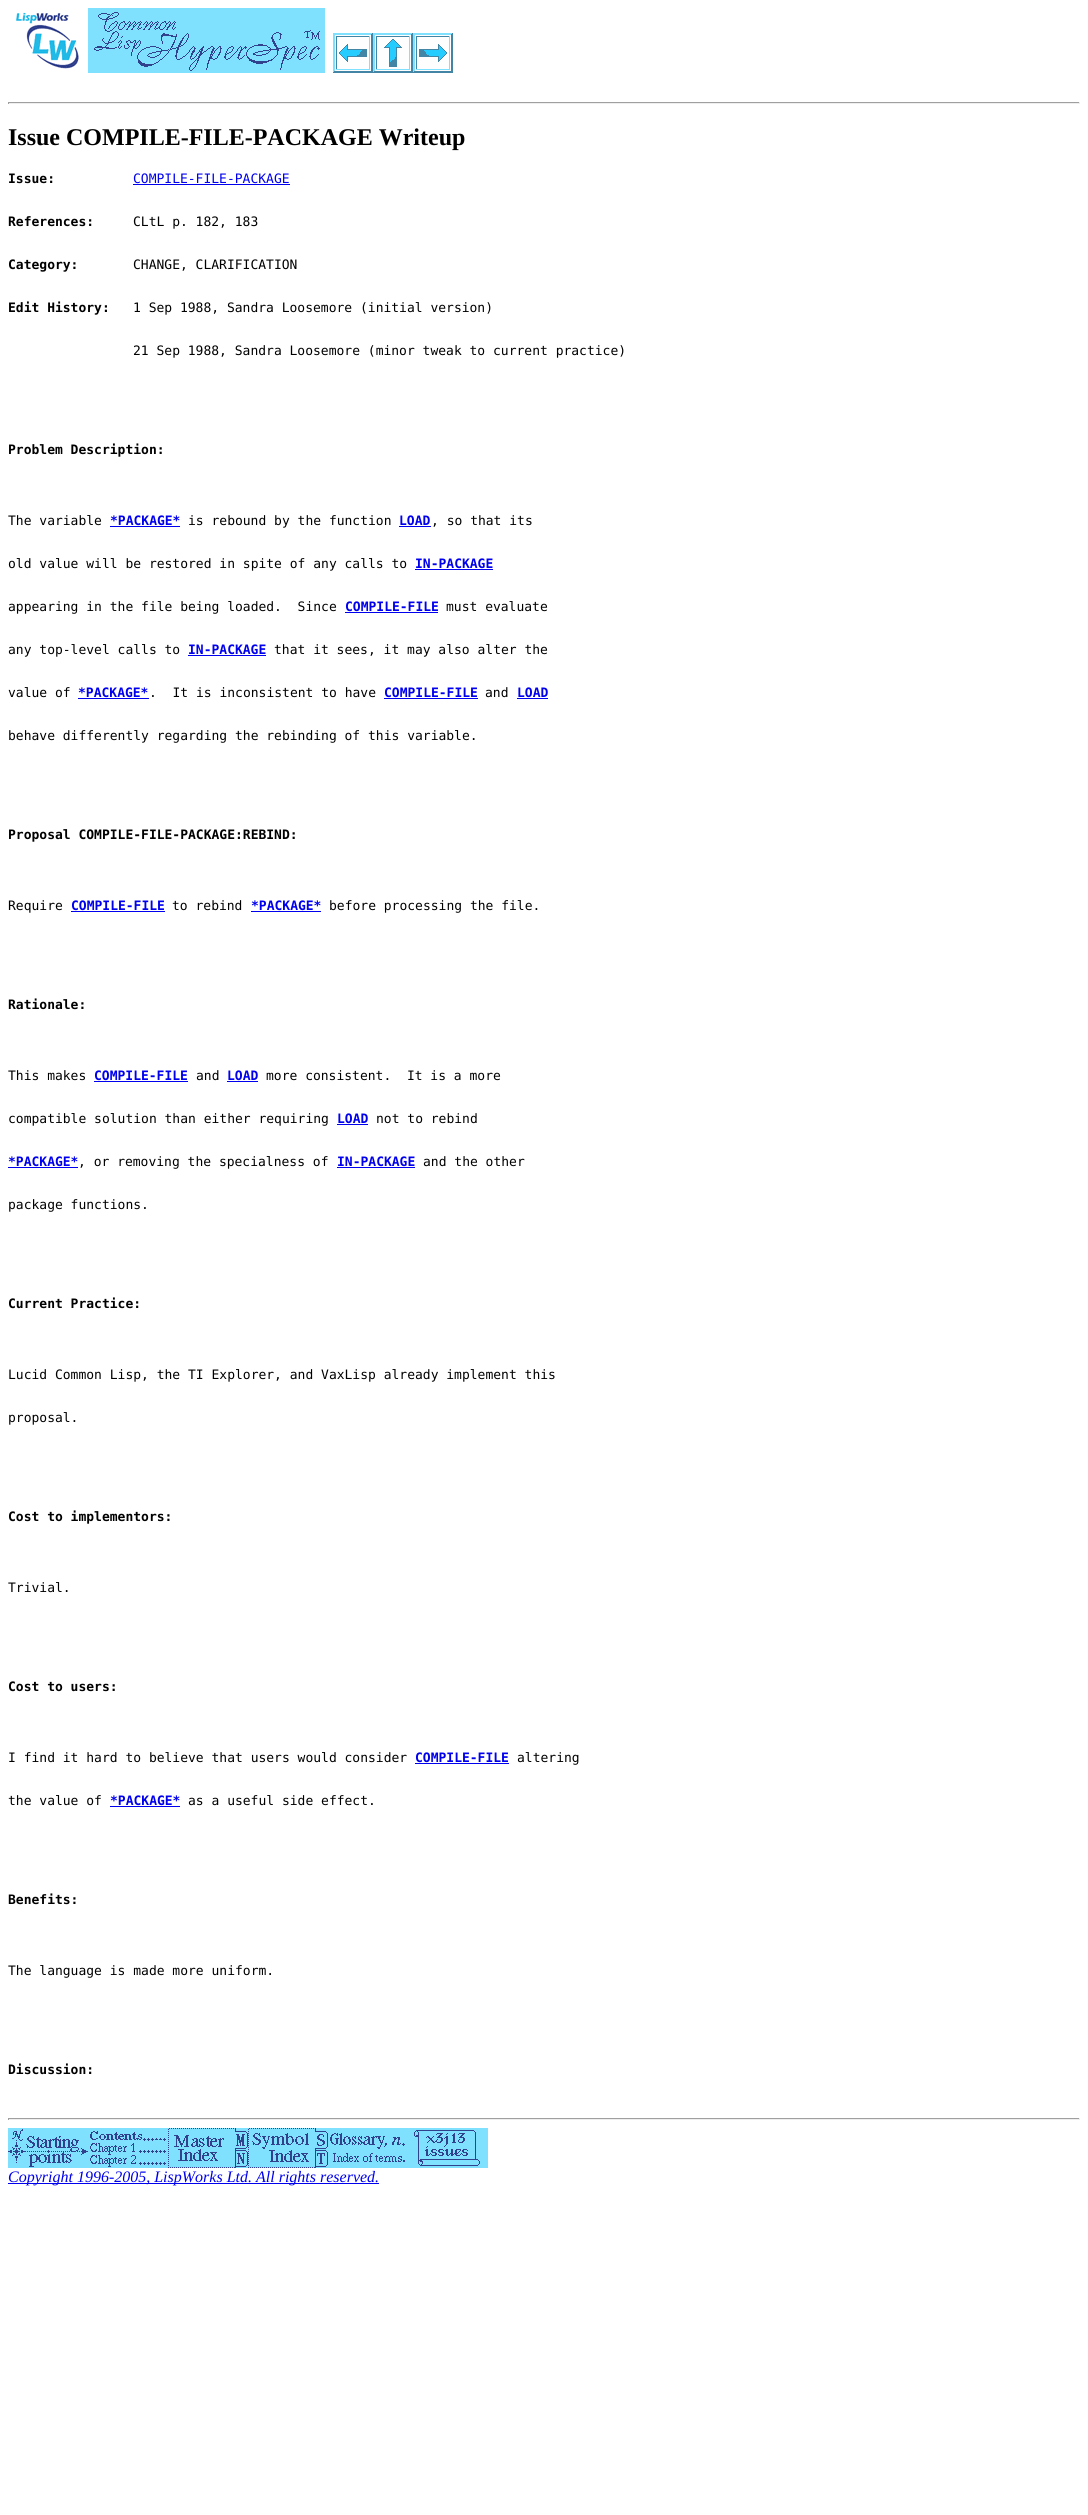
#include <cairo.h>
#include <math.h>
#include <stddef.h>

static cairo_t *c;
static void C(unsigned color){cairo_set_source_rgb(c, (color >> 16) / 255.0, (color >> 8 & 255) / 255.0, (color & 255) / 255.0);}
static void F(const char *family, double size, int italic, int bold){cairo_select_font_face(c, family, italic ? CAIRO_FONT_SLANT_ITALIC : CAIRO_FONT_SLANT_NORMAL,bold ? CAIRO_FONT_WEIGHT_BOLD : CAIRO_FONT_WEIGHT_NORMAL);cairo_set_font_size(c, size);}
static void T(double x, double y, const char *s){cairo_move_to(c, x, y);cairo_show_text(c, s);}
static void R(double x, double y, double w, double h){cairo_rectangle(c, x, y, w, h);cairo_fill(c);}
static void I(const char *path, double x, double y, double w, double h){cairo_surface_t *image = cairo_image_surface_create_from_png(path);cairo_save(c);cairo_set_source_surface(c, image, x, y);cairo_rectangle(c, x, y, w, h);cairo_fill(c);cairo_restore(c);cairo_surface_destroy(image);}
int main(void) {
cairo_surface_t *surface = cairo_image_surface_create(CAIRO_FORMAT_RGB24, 1088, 2515);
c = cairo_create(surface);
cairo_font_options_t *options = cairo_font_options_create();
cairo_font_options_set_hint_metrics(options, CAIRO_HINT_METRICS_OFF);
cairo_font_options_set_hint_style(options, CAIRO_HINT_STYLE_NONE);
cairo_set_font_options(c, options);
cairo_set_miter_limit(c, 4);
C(0xffffff);
cairo_paint(c);
I("1.png",16,12,63,57);
I("2.png",88,8,237,65);
I("3.png",333,33,40,40);
I("4.png",373,33,40,40);
I("5.png",413,33,40,40);
C(0x9f9f9f);
R(8,102,1072,1);
C(0xeeeeee);
R(1079,102,1,2);
R(8,103,1072,1);
C(0x9f9f9f);
R(8,102,1,2);
F("Liberation Serif",24,0,1);
C(0x000000);
T(8,145,"Issue COMPILE-FILE-PACKAGE Writeup");
F("DejaVu Sans Mono",13,0,1);
T(8,183,"Issue:");
F("DejaVu Sans Mono",13,0,0);
C(0x0000ee);
T(133,183,"COMPILE-FILE-PACKAGE");
R(133,184,157,1);
F("DejaVu Sans Mono",13,0,1);
C(0x000000);
T(8,226,"References:");
F("DejaVu Sans Mono",13,0,0);
T(133,226,"CLtL p. 182, 183");
F("DejaVu Sans Mono",13,0,1);
T(8,269,"Category:");
F("DejaVu Sans Mono",13,0,0);
T(133,269,"CHANGE, CLARIFICATION");
F("DejaVu Sans Mono",13,0,1);
T(8,312,"Edit History:");
F("DejaVu Sans Mono",13,0,0);
T(133,312,"1 Sep 1988, Sandra Loosemore (initial version)");
T(133,355,"21 Sep 1988, Sandra Loosemore (minor tweak to current practice)");
F("DejaVu Sans Mono",13,0,1);
T(8,454,"Problem Description:");
F("DejaVu Sans Mono",13,0,0);
T(8,525,"The variable");
F("DejaVu Sans Mono",13,0,1);
C(0x0000ee);
T(110,525,"*PACKAGE*");
R(110,526,70,1);
F("DejaVu Sans Mono",13,0,0);
C(0x000000);
T(188,525,"is rebound by the function");
F("DejaVu Sans Mono",13,0,1);
C(0x0000ee);
T(399,525,"LOAD");
R(399,526,32,1);
F("DejaVu Sans Mono",13,0,0);
C(0x000000);
T(431,525,", so that its");
T(8,568,"old value will be restored in spite of any calls to");
F("DejaVu Sans Mono",13,0,1);
C(0x0000ee);
T(415,568,"IN-PACKAGE");
R(415,569,78,1);
F("DejaVu Sans Mono",13,0,0);
C(0x000000);
T(8,611,"appearing in the file being loaded.  Since");
F("DejaVu Sans Mono",13,0,1);
C(0x0000ee);
T(345,611,"COMPILE-FILE");
R(345,612,93,1);
F("DejaVu Sans Mono",13,0,0);
C(0x000000);
T(446,611,"must evaluate");
T(8,654,"any top-level calls to");
F("DejaVu Sans Mono",13,0,1);
C(0x0000ee);
T(188,654,"IN-PACKAGE");
R(188,655,78,1);
F("DejaVu Sans Mono",13,0,0);
C(0x000000);
T(274,654,"that it sees, it may also alter the");
T(8,697,"value of");
F("DejaVu Sans Mono",13,0,1);
C(0x0000ee);
T(78,697,"*PACKAGE*");
R(78,698,71,1);
F("DejaVu Sans Mono",13,0,0);
C(0x000000);
T(149,697,".  It is inconsistent to have");
F("DejaVu Sans Mono",13,0,1);
C(0x0000ee);
T(384,697,"COMPILE-FILE");
R(384,698,94,1);
F("DejaVu Sans Mono",13,0,0);
C(0x000000);
T(485,697,"and");
F("DejaVu Sans Mono",13,0,1);
C(0x0000ee);
T(517,697,"LOAD");
R(517,698,31,1);
F("DejaVu Sans Mono",13,0,0);
C(0x000000);
T(8,740,"behave differently regarding the rebinding of this variable.");
F("DejaVu Sans Mono",13,0,1);
T(8,839,"Proposal COMPILE-FILE-PACKAGE:REBIND:");
F("DejaVu Sans Mono",13,0,0);
T(8,910,"Require");
F("DejaVu Sans Mono",13,0,1);
C(0x0000ee);
T(71,910,"COMPILE-FILE");
R(71,911,94,1);
F("DejaVu Sans Mono",13,0,0);
C(0x000000);
T(172,910,"to rebind");
F("DejaVu Sans Mono",13,0,1);
C(0x0000ee);
T(251,910,"*PACKAGE*");
R(251,911,70,1);
F("DejaVu Sans Mono",13,0,0);
C(0x000000);
T(329,910,"before processing the file.");
F("DejaVu Sans Mono",13,0,1);
T(8,1009,"Rationale:");
F("DejaVu Sans Mono",13,0,0);
T(8,1080,"This makes");
F("DejaVu Sans Mono",13,0,1);
C(0x0000ee);
T(94,1080,"COMPILE-FILE");
R(94,1081,94,1);
F("DejaVu Sans Mono",13,0,0);
C(0x000000);
T(196,1080,"and");
F("DejaVu Sans Mono",13,0,1);
C(0x0000ee);
T(227,1080,"LOAD");
R(227,1081,31,1);
F("DejaVu Sans Mono",13,0,0);
C(0x000000);
T(266,1080,"more consistent.  It is a more");
T(8,1123,"compatible solution than either requiring");
F("DejaVu Sans Mono",13,0,1);
C(0x0000ee);
T(337,1123,"LOAD");
R(337,1124,31,1);
F("DejaVu Sans Mono",13,0,0);
C(0x000000);
T(376,1123,"not to rebind");
F("DejaVu Sans Mono",13,0,1);
C(0x0000ee);
T(8,1166,"*PACKAGE*");
R(8,1167,70,1);
F("DejaVu Sans Mono",13,0,0);
C(0x000000);
T(78,1166,", or removing the specialness of");
F("DejaVu Sans Mono",13,0,1);
C(0x0000ee);
T(337,1166,"IN-PACKAGE");
R(337,1167,78,1);
F("DejaVu Sans Mono",13,0,0);
C(0x000000);
T(423,1166,"and the other");
T(8,1209,"package functions.");
F("DejaVu Sans Mono",13,0,1);
T(8,1308,"Current Practice:");
F("DejaVu Sans Mono",13,0,0);
T(8,1379,"Lucid Common Lisp, the TI Explorer, and VaxLisp already implement this");
T(8,1422,"proposal.");
F("DejaVu Sans Mono",13,0,1);
T(8,1521,"Cost to implementors:");
F("DejaVu Sans Mono",13,0,0);
T(8,1592,"Trivial.");
F("DejaVu Sans Mono",13,0,1);
T(8,1691,"Cost to users:");
F("DejaVu Sans Mono",13,0,0);
T(8,1762,"I find it hard to believe that users would consider");
F("DejaVu Sans Mono",13,0,1);
C(0x0000ee);
T(415,1762,"COMPILE-FILE");
R(415,1763,94,1);
F("DejaVu Sans Mono",13,0,0);
C(0x000000);
T(517,1762,"altering");
T(8,1805,"the value of");
F("DejaVu Sans Mono",13,0,1);
C(0x0000ee);
T(110,1805,"*PACKAGE*");
R(110,1806,70,1);
F("DejaVu Sans Mono",13,0,0);
C(0x000000);
T(188,1805,"as a useful side effect.");
F("DejaVu Sans Mono",13,0,1);
T(8,1904,"Benefits:");
F("DejaVu Sans Mono",13,0,0);
T(8,1975,"The language is made more uniform.");
F("DejaVu Sans Mono",13,0,1);
T(8,2074,"Discussion:");
C(0x9f9f9f);
R(8,2118,1072,1);
C(0xeeeeee);
R(1079,2118,1,2);
R(8,2119,1072,1);
C(0x9f9f9f);
R(8,2118,1,2);
I("6.png",8,2128,80,40);
I("7.png",88,2128,80,40);
I("8.png",168,2128,80,40);
I("9.png",248,2128,80,40);
I("10.png",328,2128,80,40);
I("11.png",408,2128,80,40);
C(0x0000ee);
R(8,2183,371,1);
F("Liberation Serif",16,1,0);
T(8,2182,"Copyright 1996-2005, LispWorks Ltd. All rights reserved.");
cairo_surface_write_to_png(surface, "o.png");
cairo_font_options_destroy(options);
cairo_destroy(c);
cairo_surface_destroy(surface);
return 0;
}
